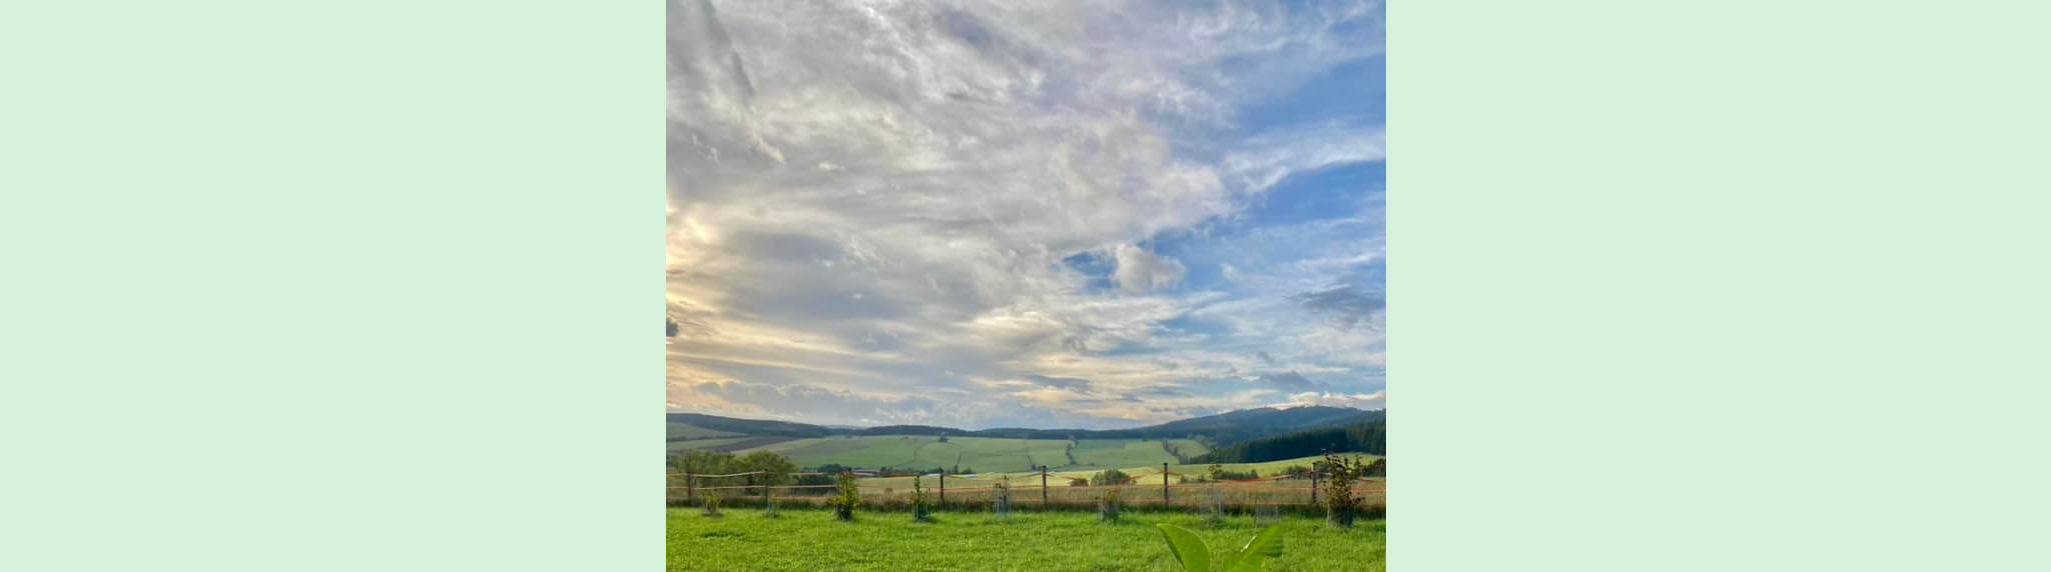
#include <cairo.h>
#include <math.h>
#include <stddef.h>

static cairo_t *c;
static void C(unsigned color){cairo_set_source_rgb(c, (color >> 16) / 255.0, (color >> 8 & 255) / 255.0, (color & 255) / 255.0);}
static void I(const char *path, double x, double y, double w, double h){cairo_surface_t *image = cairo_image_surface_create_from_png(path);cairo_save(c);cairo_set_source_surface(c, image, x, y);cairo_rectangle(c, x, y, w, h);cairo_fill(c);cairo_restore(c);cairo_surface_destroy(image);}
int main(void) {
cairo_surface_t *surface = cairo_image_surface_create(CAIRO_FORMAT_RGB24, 2051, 572);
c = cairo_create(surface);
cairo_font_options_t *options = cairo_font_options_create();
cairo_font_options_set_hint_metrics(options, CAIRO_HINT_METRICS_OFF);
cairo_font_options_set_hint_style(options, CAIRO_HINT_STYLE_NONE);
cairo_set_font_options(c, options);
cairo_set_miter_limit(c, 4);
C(0xd7f0d9);
cairo_paint(c);
I("1.png",666,0,720,572);
cairo_surface_write_to_png(surface, "o.png");
cairo_font_options_destroy(options);
cairo_destroy(c);
cairo_surface_destroy(surface);
return 0;
}
